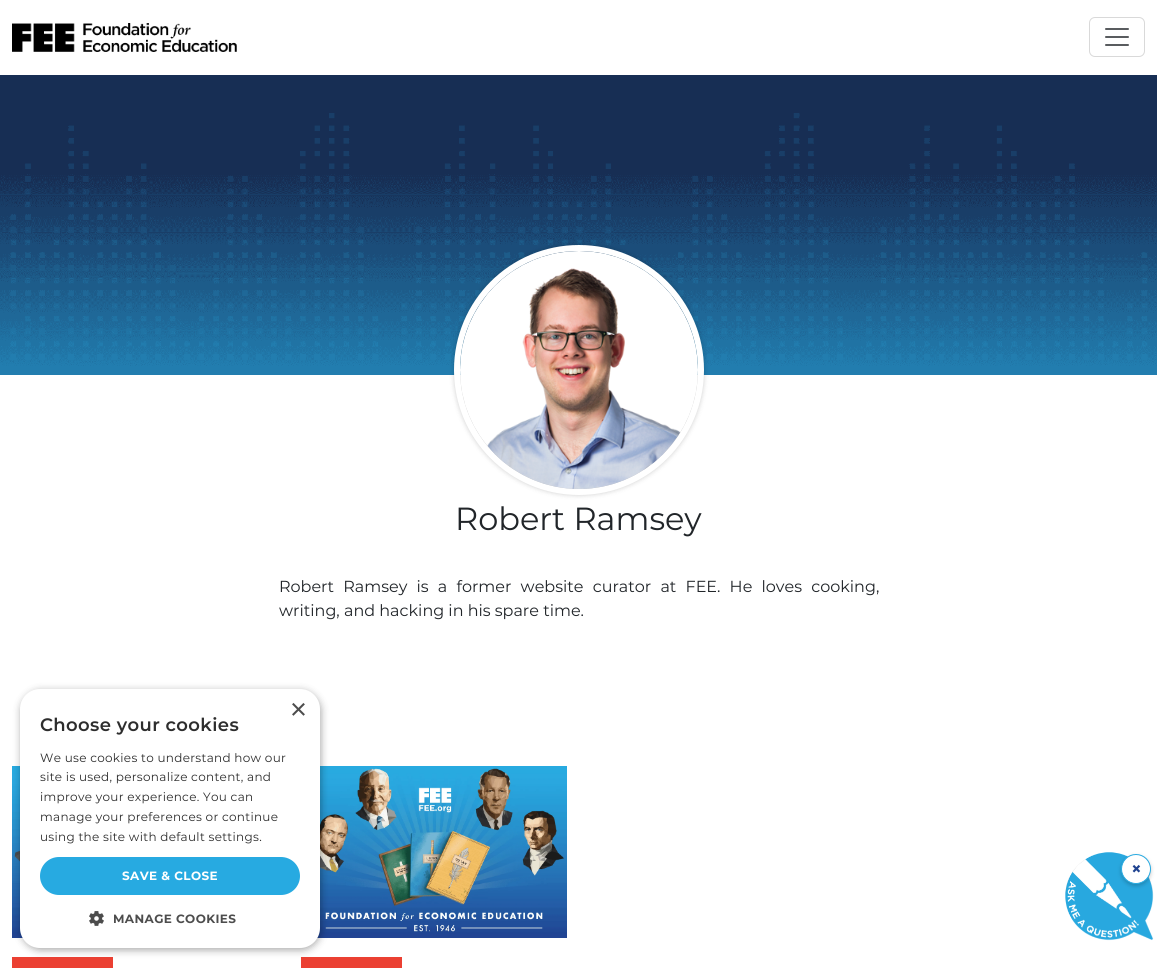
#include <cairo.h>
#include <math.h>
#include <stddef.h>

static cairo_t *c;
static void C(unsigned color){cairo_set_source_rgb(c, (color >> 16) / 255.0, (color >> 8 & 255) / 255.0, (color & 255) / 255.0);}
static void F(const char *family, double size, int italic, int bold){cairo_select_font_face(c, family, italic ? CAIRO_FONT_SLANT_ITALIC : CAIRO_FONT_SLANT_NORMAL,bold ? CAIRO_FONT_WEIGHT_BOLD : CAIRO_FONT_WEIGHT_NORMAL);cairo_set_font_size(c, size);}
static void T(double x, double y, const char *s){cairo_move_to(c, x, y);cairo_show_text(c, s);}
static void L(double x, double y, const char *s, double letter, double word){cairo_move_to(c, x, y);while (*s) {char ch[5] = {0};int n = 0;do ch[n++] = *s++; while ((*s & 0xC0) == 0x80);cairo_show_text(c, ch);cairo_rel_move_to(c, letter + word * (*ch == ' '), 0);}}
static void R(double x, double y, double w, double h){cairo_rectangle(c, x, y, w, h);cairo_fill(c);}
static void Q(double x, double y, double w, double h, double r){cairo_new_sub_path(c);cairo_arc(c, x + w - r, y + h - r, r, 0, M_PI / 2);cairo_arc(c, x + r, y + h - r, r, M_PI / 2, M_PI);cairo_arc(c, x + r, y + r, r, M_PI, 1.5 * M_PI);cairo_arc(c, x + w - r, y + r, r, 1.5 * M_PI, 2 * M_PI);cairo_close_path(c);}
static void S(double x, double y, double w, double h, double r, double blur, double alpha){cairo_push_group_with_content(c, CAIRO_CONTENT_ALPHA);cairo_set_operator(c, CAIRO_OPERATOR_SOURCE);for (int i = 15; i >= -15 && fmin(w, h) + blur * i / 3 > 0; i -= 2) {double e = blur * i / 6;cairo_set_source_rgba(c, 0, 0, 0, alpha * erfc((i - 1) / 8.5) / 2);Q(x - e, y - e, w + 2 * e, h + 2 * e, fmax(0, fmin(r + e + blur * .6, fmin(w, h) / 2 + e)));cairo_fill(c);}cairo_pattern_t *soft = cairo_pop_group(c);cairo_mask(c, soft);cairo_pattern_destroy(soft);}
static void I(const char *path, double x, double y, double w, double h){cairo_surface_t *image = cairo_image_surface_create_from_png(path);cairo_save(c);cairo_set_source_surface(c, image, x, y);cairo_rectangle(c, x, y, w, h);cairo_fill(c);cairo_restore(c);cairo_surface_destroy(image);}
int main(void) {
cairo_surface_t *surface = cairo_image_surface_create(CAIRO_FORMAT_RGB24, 1157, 968);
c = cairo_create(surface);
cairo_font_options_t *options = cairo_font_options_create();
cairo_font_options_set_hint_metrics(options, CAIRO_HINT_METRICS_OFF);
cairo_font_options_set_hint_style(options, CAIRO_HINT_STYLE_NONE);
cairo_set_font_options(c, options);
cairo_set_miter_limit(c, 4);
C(0xffffff);
cairo_paint(c);
I("1.png",12,23,225,29);
Q(1089.5,17.5,55,39,5.5);
C(0xd9d9d9);
cairo_set_line_width(c,1);
cairo_stroke(c);
I("2.png",1105,28,24,18);
I("3.png",0,75,1157,300);
C(0x000000);
S(454,245,250,250,125,2.5,.2);
cairo_arc(c,579,370,122,0,2 * M_PI);
C(0xffffff);
cairo_set_line_width(c,6);
cairo_stroke(c);
I("4.png",460,251,238,238);
F("Montserrat",32,0,0);
C(0x212529);
T(455,530,"Robert Ramsey");
F("Montserrat",16,0,0);
L(279,592,"Robert Ramsey is a former website curator at FEE. He loves cooking,",0,5);
T(279,616,"writing, and hacking in his spare time.");
I("5.png",12,766,11,172);
C(0xeb4032);
R(12,957,101,11);
I("6.png",317,766,250,172);
R(301,957,101,11);
C(0x000000);
S(21,691,300,259,20,4,.35);
C(0xffffff);
Q(20,689,300,259,20);
cairo_fill(c);
F("Liberation Sans",29,0,0);
C(0x4d4d4d);
T(290,719,"×");
F("Montserrat SemiBold",18,0,0);
C(0x2d2d2d);
L(40,731,"Choose your cookies",.4,0);
F("Montserrat",12,0,0);
L(40,762,"We use cookies to understand how our",.3,0);
L(40,781,"site is used, personalize content, and",.3,0);
L(40,801,"improve your experience. You can",.3,0);
L(40,821,"manage your preferences or continue",.3,0);
L(40,841,"using the site with default settings.",.3,0);
C(0x27aae1);
Q(40,857,260,38,19);
cairo_fill(c);
F("Montserrat",12,0,1);
C(0xffffff);
L(122,880,"SAVE & CLOSE",.4,0);
I("7.png",89,911,15,15);
C(0x4d4d4d);
L(113,923,"MANAGE COOKIES",.4,0);
I("8.png",1065,852,89,89);
C(0x000000);
S(1121,856,30,30,15,2,.2);
C(0xffffff);
cairo_arc(c,1136,869,14.5,0,2 * M_PI);
cairo_fill_preserve(c);
C(0x27aae1);
cairo_set_line_width(c,1);
cairo_stroke(c);
F("Montserrat",18,0,1);
C(0x1f4390);
T(1131,875,"×");
cairo_surface_write_to_png(surface, "o.png");
cairo_font_options_destroy(options);
cairo_destroy(c);
cairo_surface_destroy(surface);
return 0;
}
